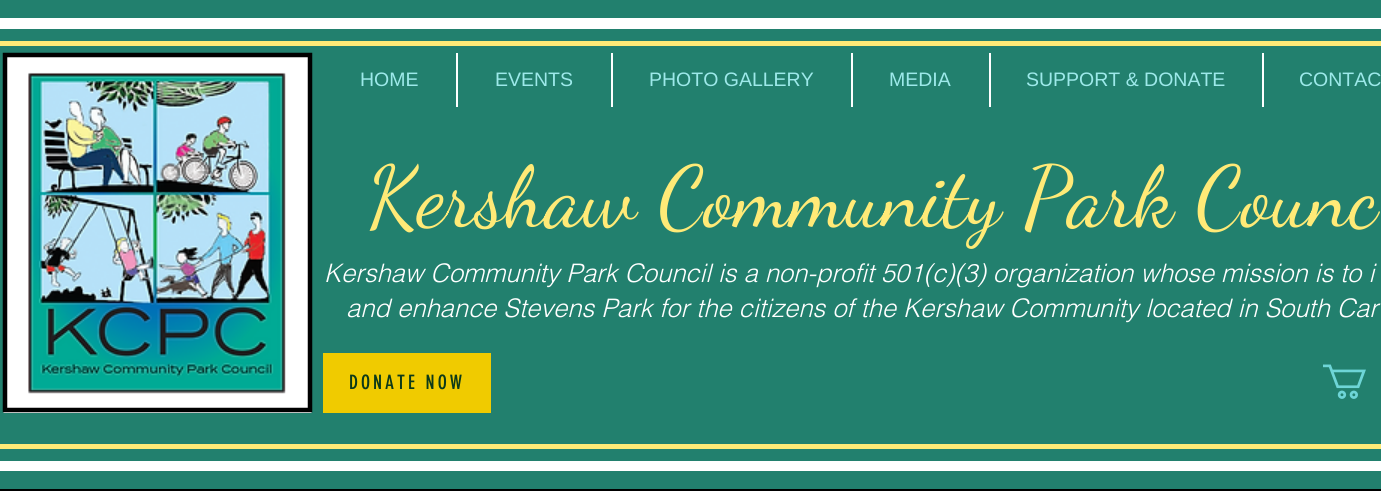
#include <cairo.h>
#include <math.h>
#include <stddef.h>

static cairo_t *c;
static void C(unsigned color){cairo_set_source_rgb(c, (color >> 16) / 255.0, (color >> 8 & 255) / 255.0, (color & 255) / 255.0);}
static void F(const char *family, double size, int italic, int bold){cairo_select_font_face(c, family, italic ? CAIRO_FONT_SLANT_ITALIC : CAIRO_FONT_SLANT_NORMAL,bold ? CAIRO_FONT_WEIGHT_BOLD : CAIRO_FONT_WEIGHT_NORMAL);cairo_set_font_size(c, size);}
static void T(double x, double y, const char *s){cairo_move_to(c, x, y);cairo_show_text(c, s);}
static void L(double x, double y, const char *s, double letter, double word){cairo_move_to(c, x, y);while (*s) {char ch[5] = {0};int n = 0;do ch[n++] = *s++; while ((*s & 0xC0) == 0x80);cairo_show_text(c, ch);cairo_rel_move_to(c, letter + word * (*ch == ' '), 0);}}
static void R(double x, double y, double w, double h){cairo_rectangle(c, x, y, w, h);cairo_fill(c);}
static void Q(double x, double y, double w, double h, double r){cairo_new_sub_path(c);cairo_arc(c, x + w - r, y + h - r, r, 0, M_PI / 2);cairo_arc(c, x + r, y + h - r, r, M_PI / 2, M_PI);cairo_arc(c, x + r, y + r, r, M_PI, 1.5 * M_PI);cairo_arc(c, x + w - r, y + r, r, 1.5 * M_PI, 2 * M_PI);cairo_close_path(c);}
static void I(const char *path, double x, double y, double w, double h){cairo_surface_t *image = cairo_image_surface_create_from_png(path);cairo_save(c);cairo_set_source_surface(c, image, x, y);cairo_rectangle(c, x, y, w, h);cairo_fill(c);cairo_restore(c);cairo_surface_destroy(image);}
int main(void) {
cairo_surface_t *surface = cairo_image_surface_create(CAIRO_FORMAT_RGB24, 1381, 491);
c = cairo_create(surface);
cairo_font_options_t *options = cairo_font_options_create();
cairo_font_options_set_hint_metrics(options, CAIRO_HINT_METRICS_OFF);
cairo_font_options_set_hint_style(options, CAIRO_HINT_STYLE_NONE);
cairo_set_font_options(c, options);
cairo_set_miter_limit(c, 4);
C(0x000000);
cairo_paint(c);
C(0x22806e);
R(0,0,1381,489);
C(0xffffff);
R(0,18,1381,11);
R(0,461,1381,10);
C(0xffea77);
R(0,41,1381,5);
R(0,444,1381,5);
C(0xffffff);
Q(3,53,309,360,1.5);
cairo_fill(c);
cairo_new_path(c);
cairo_move_to(c,5,55);
cairo_line_to(c,310,55);
cairo_line_to(c,310,410);
cairo_line_to(c,5,410);
cairo_close_path(c);
C(0x000000);
cairo_set_line_width(c,4.5);
cairo_stroke(c);
I("1.png",28,72,258,322);
F("Liberation Sans",19.5,0,0);
C(0x9de9ea);
T(360,86,"HOME");
C(0xffffff);
R(456,53,2,54);
C(0x9de9ea);
T(495,86,"EVENTS");
C(0xffffff);
R(611,53,2,54);
C(0x9de9ea);
T(649,86,"PHOTO GALLERY");
C(0xffffff);
R(851,53,2,54);
C(0x9de9ea);
T(889,86,"MEDIA");
C(0xffffff);
R(989,53,2,54);
C(0x9de9ea);
T(1026,86,"SUPPORT & DONATE");
C(0xffffff);
R(1262,53,2,54);
C(0x9de9ea);
T(1299,86,"CONTAC");
F("Dancing Script",85.5,0,0);
C(0xffea77);
T(367,225,"Kershaw Community Park Counc");
F("helvetica Light",25.5,1,0);
C(0xffffff);
T(324,282,"Kershaw Community Park Council is a non-profit 501(c)(3) organization whose mission is to i");
T(346,317,"and enhance Stevens Park for the citizens of the Kershaw Community located in South Car");
C(0xf0cb00);
R(323,353,168,60);
F("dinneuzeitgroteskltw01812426",19.5,0,0);
C(0x0d3a18);
L(349,389,"DONATE NOW",3,0);
I("2.png",1323,364,43,35);
cairo_surface_write_to_png(surface, "o.png");
cairo_font_options_destroy(options);
cairo_destroy(c);
cairo_surface_destroy(surface);
return 0;
}
